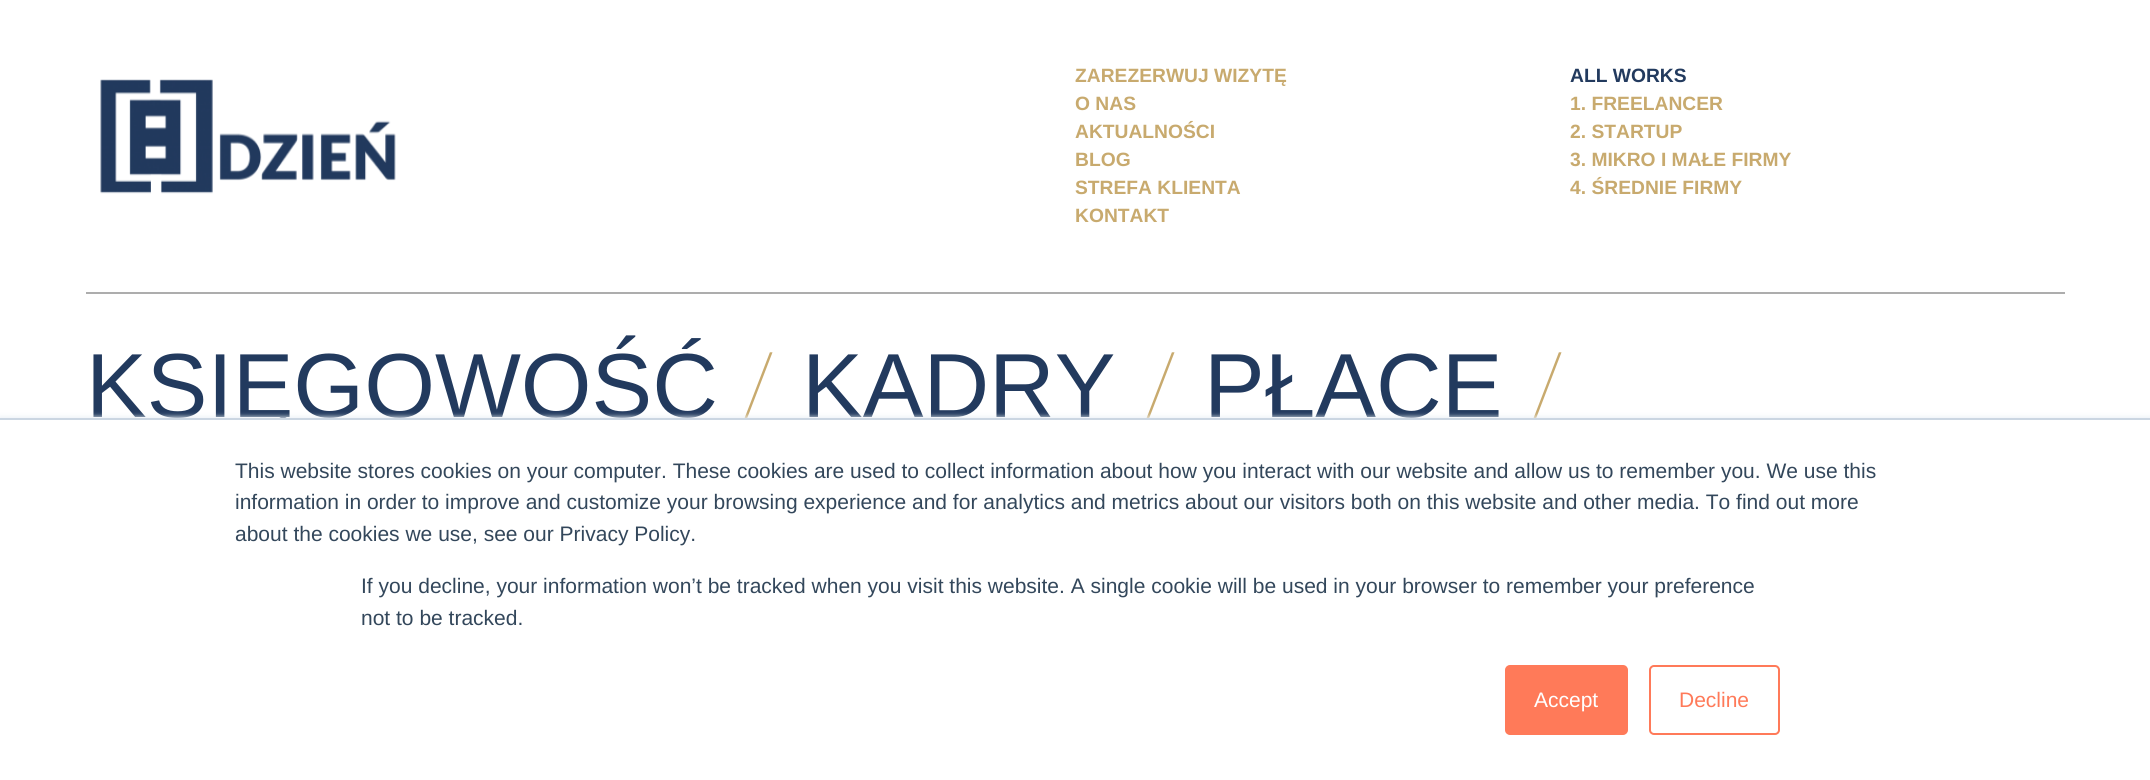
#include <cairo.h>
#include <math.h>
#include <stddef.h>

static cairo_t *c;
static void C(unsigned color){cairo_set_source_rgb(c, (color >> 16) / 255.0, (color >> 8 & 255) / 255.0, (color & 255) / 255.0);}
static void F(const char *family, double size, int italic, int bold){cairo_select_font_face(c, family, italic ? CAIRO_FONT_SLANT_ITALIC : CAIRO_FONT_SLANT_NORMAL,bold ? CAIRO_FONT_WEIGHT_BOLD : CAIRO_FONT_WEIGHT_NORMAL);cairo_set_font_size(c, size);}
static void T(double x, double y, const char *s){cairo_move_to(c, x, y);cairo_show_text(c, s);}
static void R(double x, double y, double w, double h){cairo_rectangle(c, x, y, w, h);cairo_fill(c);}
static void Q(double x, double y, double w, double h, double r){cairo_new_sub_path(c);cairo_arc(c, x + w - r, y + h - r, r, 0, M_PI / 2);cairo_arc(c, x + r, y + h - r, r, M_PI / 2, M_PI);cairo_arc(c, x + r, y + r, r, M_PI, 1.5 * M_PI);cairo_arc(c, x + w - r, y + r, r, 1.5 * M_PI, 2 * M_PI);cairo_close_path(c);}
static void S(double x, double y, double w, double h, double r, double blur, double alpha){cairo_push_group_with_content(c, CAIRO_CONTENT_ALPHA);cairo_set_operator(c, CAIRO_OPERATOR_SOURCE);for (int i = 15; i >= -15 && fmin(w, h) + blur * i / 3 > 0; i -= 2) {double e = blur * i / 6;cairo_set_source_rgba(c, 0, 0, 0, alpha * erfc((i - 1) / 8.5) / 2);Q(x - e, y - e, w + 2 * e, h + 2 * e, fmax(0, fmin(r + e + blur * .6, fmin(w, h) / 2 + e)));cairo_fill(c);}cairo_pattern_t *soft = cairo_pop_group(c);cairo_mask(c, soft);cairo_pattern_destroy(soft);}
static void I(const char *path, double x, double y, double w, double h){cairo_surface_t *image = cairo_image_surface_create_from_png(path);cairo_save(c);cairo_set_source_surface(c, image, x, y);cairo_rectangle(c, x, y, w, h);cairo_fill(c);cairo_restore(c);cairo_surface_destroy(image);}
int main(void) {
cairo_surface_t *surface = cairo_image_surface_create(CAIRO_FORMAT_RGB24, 2150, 780);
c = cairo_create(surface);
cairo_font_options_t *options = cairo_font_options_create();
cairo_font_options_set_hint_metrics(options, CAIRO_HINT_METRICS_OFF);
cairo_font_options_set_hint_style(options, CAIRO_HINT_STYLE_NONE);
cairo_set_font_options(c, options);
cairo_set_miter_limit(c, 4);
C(0xffffff);
cairo_paint(c);
I("1.png",100,79,296,115);
F("Liberation Sans",19.25,0,1);
C(0xc8aa6e);
T(1075,82,"ZAREZERWUJ WIZYTĘ");
T(1075,110,"O NAS");
T(1075,138,"AKTUALNOŚCI");
T(1075,166,"BLOG");
T(1075,194,"STREFA KLIENTA");
T(1075,222,"KONTAKT");
C(0x223a5e);
T(1570,82,"ALL WORKS");
C(0xc8aa6e);
T(1570,110,"1. FREELANCER");
T(1570,138,"2. STARTUP");
T(1570,166,"3. MIKRO I MAŁE FIRMY");
T(1570,194,"4. ŚREDNIE FIRMY");
C(0xadadad);
R(86,292,1979,2);
F("Liberation Sans",91,0,0);
C(0x223a5e);
T(86,417,"KSIĘGOWOŚĆ");
F("Roboto Thin",91,0,0);
C(0xc8aa6e);
T(741,417,"/");
F("Liberation Sans",91,0,0);
C(0x223a5e);
T(802,417,"KADRY");
F("Roboto Thin",91,0,0);
C(0xc8aa6e);
T(1143,417,"/");
F("Liberation Sans",91,0,0);
C(0x223a5e);
T(1204,417,"PŁACE");
F("Roboto Thin",91,0,0);
C(0xc8aa6e);
T(1530,417,"/");
C(0xeaf0f6);
S(0,417,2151,362,0,2.5,1);
C(0xffffff);
R(0,420,2150,360);
C(0xcbd6e2);
R(0,418,2150,2);
F("Liberation Sans",21,0,0);
C(0x33475b);
T(235,478,"This website stores cookies on your computer. These cookies are used to collect information about how you interact with our website and allow us to remember you. We use this");
T(235,509,"information in order to improve and customize your browsing experience and for analytics and metrics about our visitors both on this website and other media. To find out more");
T(235,541,"about the cookies we use, see our Privacy Policy.");
T(361,593,"If you decline, your information won’t be tracked when you visit this website. A single cookie will be used in your browser to remember your preference");
T(361,625,"not to be tracked.");
C(0xff7a59);
Q(1506,666,121,68,4);
cairo_fill_preserve(c);
cairo_stroke(c);
C(0xffffff);
T(1534,707,"Accept");
Q(1650,666,129,68,4);
C(0xff7a59);
cairo_stroke(c);
T(1679,707,"Decline");
cairo_surface_write_to_png(surface, "o.png");
cairo_font_options_destroy(options);
cairo_destroy(c);
cairo_surface_destroy(surface);
return 0;
}
